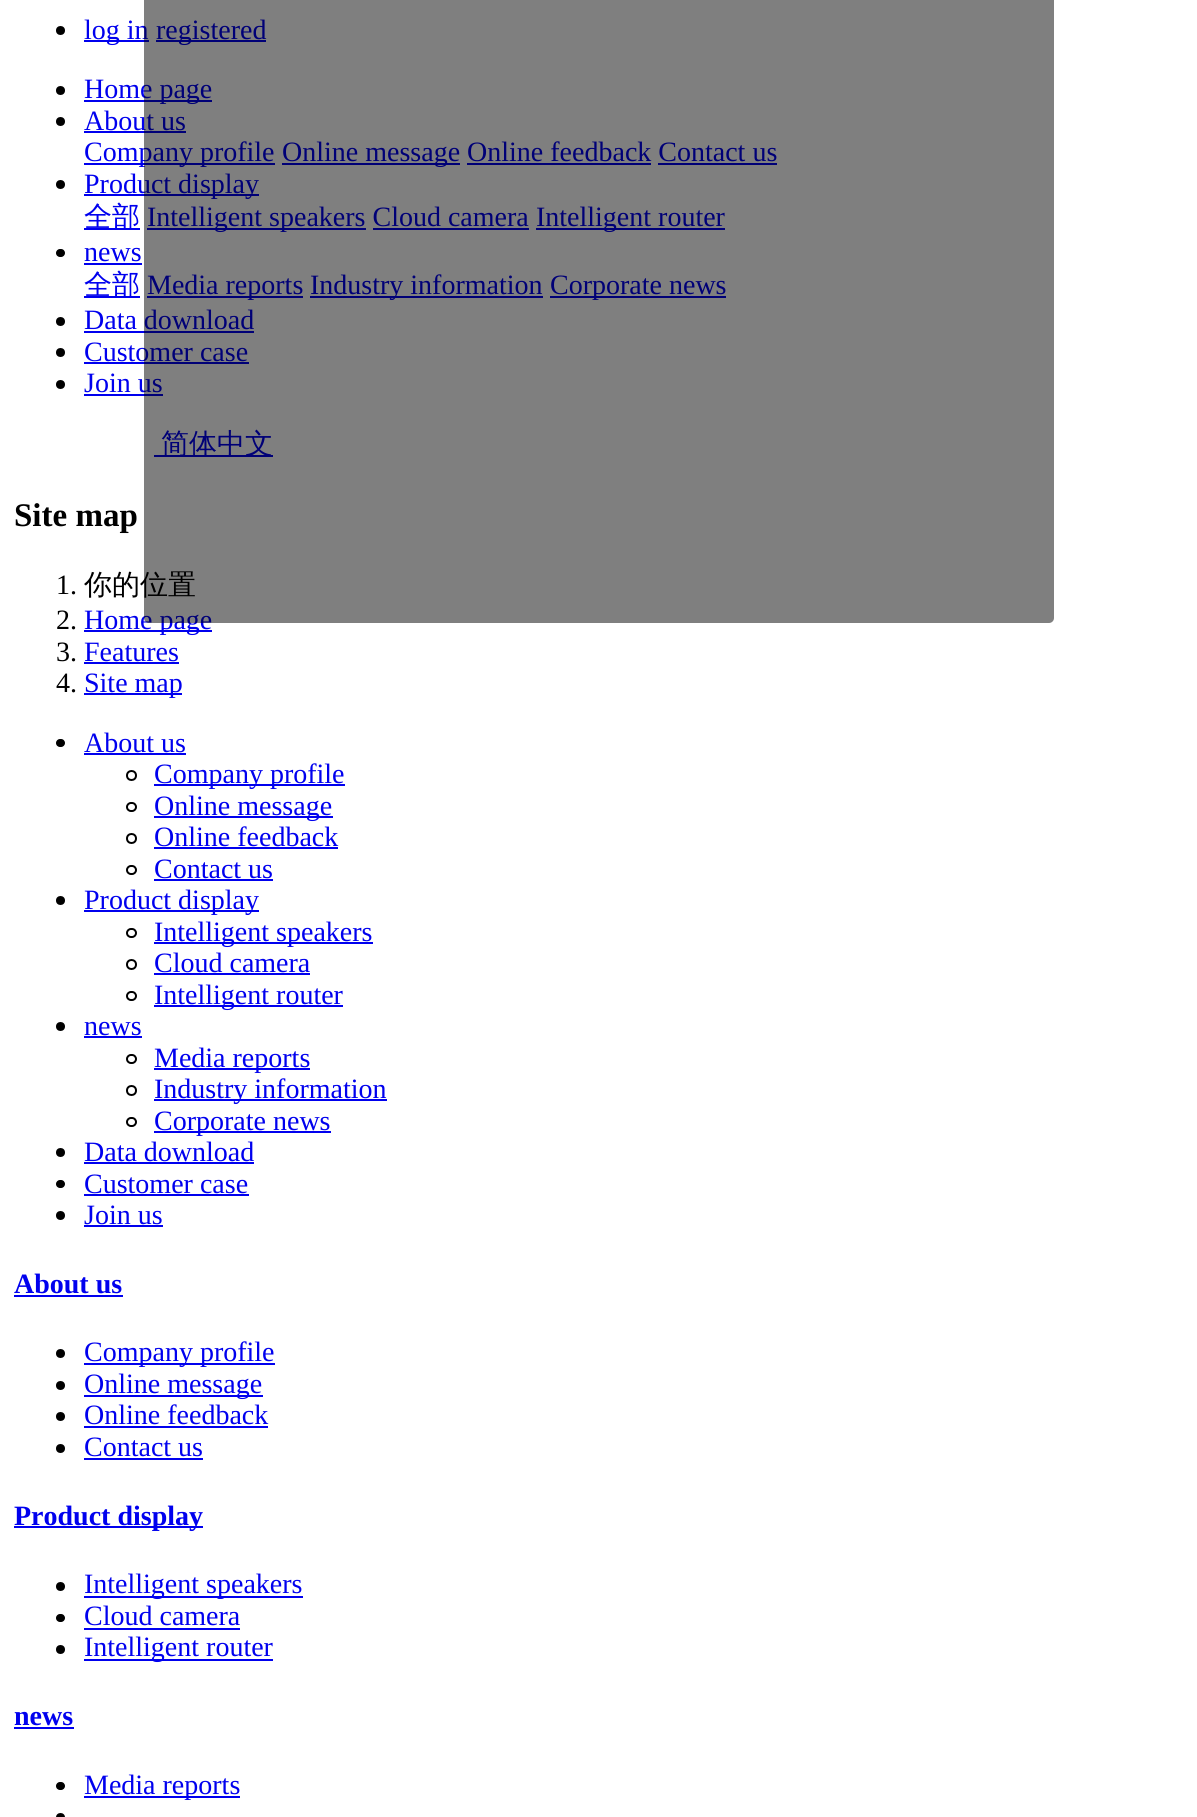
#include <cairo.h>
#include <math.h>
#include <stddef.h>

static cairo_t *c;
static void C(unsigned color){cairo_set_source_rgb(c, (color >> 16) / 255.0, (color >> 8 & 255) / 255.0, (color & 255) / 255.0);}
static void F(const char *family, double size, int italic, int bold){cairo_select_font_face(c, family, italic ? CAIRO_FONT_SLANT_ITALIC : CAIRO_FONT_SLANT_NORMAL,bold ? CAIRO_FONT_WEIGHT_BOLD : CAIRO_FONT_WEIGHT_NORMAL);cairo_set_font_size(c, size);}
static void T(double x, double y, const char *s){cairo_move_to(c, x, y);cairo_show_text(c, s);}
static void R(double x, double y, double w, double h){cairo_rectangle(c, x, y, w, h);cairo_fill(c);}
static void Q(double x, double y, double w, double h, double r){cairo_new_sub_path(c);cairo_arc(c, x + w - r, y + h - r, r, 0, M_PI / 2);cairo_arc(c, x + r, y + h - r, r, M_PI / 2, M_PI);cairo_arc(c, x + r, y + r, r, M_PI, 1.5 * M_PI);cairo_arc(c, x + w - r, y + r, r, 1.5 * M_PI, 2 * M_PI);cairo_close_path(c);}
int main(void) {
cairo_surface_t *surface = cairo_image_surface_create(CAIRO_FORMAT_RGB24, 1197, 1817);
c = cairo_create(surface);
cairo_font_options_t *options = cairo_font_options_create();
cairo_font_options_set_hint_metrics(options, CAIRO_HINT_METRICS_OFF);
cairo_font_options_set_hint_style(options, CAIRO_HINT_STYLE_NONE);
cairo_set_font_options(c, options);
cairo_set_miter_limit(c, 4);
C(0xffffff);
cairo_paint(c);
C(0x0000ee);
R(84,40,65,2);
F("Liberation Serif",28,0,0);
T(84,39,"log in");
R(156,40,110,2);
T(156,39,"registered");
R(84,100,128,2);
T(84,98,"Home page");
T(84,130,"About us");
R(84,131,102,2);
R(84,163,191,2);
T(84,161,"Company profile");
R(282,163,178,2);
T(282,161,"Online message Online feedback Contact us");
R(467,163,184,2);
R(658,163,119,2);
R(84,194,175,2);
T(84,193,"Product display");
R(147,228,219,2);
T(147,226,"Intelligent speakers Cloud camera");
R(536,228,189,2);
T(536,226,"Intelligent router");
R(373,228,156,2);
R(147,296,156,2);
T(147,294,"Media reports");
R(310,296,233,2);
T(310,294,"Industry information");
R(550,296,176,2);
T(550,294,"Corporate news");
T(84,329,"Data download");
R(84,331,170,2);
T(84,361,"Customer case");
R(84,362,165,2);
T(84,392,"Join us");
R(84,394,79,2);
R(154,455,119,2);
F("WenQuanYi Zen Hei Medium",28,0,0);
T(161,453,"简体中文");
C(0x000000);
T(84,594,"你的位置");
C(0x0000ee);
R(84,630,128,2);
F("Liberation Serif",28,0,0);
T(84,629,"Home page");
cairo_set_source_rgba(c,0,0,0,0.5);
Q(144,-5,910,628,5);
cairo_fill(c);
C(0x000000);
cairo_arc(c,60.5,30.5,4.5,0,2 * M_PI);
cairo_fill(c);
cairo_arc(c,60.5,90.5,4.5,0,2 * M_PI);
cairo_fill(c);
cairo_arc(c,60.5,121.5,4.5,0,2 * M_PI);
cairo_fill(c);
cairo_arc(c,60.5,184.5,4.5,0,2 * M_PI);
cairo_fill(c);
C(0x0000ee);
R(84,228,56,2);
F("WenQuanYi Zen Hei Medium",28,0,0);
T(84,226,"全部");
C(0x000000);
Q(56,249,9,8,4);
cairo_fill(c);
F("Liberation Serif",28,0,0);
C(0x0000ee);
T(84,261,"news");
R(84,263,58,2);
R(84,296,56,2);
F("WenQuanYi Zen Hei Medium",28,0,0);
T(84,294,"全部");
C(0x000000);
cairo_new_path(c);
cairo_arc(c,60.5,321.5,4.5,0,2 * M_PI);
cairo_fill(c);
cairo_arc(c,60.5,352.5,4.5,0,2 * M_PI);
cairo_fill(c);
cairo_arc(c,60.5,384.5,4.5,0,2 * M_PI);
cairo_fill(c);
F("Liberation Serif",33,0,1);
T(14,526,"Site map");
F("Liberation Serif",28,0,0);
T(56,594,"1.");
T(56,629,"2.");
T(56,661,"3.");
C(0x0000ee);
T(84,661,"Features");
R(84,662,95,2);
C(0x000000);
T(56,692,"4.");
C(0x0000ee);
R(84,693,98,2);
T(84,692,"Site map");
C(0x000000);
Q(56,739,9,8,4);
cairo_fill(c);
C(0x0000ee);
T(84,752,"About us");
R(84,753,102,2);
cairo_new_path(c);
cairo_arc(c,131.5,775.5,4.5,0,2 * M_PI);
C(0x000000);
cairo_stroke(c);
C(0x0000ee);
R(154,784,191,2);
T(154,783,"Company profile");
Q(127,803,9,8,4);
C(0x000000);
cairo_stroke(c);
C(0x0000ee);
R(154,816,179,2);
T(154,815,"Online message");
cairo_new_path(c);
cairo_arc(c,131.5,838.5,4.5,0,2 * M_PI);
C(0x000000);
cairo_stroke(c);
C(0x0000ee);
T(154,846,"Online feedback");
R(154,847,184,2);
Q(127,866,9,8,4);
C(0x000000);
cairo_stroke(c);
C(0x0000ee);
T(154,878,"Contact us");
R(154,879,119,2);
C(0x000000);
cairo_new_path(c);
cairo_arc(c,60.5,900.5,4.5,0,2 * M_PI);
cairo_fill(c);
C(0x0000ee);
R(84,910,175,2);
T(84,909,"Product display");
Q(127,929,9,8,4);
C(0x000000);
cairo_stroke(c);
C(0x0000ee);
R(154,942,219,2);
T(154,941,"Intelligent speakers");
cairo_new_path(c);
cairo_arc(c,131.5,964.5,4.5,0,2 * M_PI);
C(0x000000);
cairo_stroke(c);
C(0x0000ee);
T(154,972,"Cloud camera");
R(154,973,156,2);
Q(127,992,9,8,4);
C(0x000000);
cairo_stroke(c);
C(0x0000ee);
R(154,1005,189,2);
T(154,1004,"Intelligent router");
C(0x000000);
cairo_new_path(c);
cairo_arc(c,60.5,1026.5,4.5,0,2 * M_PI);
cairo_fill(c);
C(0x0000ee);
T(84,1035,"news");
R(84,1036,58,2);
Q(127,1055,9,8,4);
C(0x000000);
cairo_stroke(c);
C(0x0000ee);
R(154,1068,156,2);
T(154,1067,"Media reports");
cairo_new_path(c);
cairo_arc(c,131.5,1090.5,4.5,0,2 * M_PI);
C(0x000000);
cairo_stroke(c);
C(0x0000ee);
R(154,1099,233,2);
T(154,1098,"Industry information");
Q(127,1118,9,8,4);
C(0x000000);
cairo_stroke(c);
C(0x0000ee);
R(154,1131,177,2);
T(154,1130,"Corporate news");
C(0x000000);
cairo_new_path(c);
cairo_arc(c,60.5,1152.5,4.5,0,2 * M_PI);
cairo_fill(c);
C(0x0000ee);
T(84,1161,"Data download");
R(84,1162,170,2);
C(0x000000);
Q(56,1180,9,8,4);
cairo_fill(c);
C(0x0000ee);
T(84,1193,"Customer case");
R(84,1194,165,2);
C(0x000000);
cairo_new_path(c);
cairo_arc(c,60.5,1215.5,4.5,0,2 * M_PI);
cairo_fill(c);
C(0x0000ee);
T(84,1224,"Join us");
R(84,1225,79,2);
F("Liberation Serif",28,0,1);
T(14,1293,"About us");
R(14,1295,109,2);
C(0x000000);
cairo_new_path(c);
cairo_arc(c,60.5,1353.5,4.5,0,2 * M_PI);
cairo_fill(c);
C(0x0000ee);
R(84,1363,191,2);
F("Liberation Serif",28,0,0);
T(84,1361,"Company profile");
C(0x000000);
cairo_new_path(c);
cairo_arc(c,60.5,1385.5,4.5,0,2 * M_PI);
cairo_fill(c);
C(0x0000ee);
R(84,1395,179,2);
T(84,1393,"Online message");
C(0x000000);
cairo_new_path(c);
cairo_arc(c,60.5,1416.5,4.5,0,2 * M_PI);
cairo_fill(c);
C(0x0000ee);
T(84,1424,"Online feedback");
R(84,1426,184,2);
C(0x000000);
cairo_new_path(c);
cairo_arc(c,60.5,1448.5,4.5,0,2 * M_PI);
cairo_fill(c);
C(0x0000ee);
T(84,1456,"Contact us");
R(84,1458,119,2);
R(14,1526,189,2);
F("Liberation Serif",28,0,1);
T(14,1525,"Product display");
C(0x000000);
cairo_new_path(c);
cairo_arc(c,60.5,1586.5,4.5,0,2 * M_PI);
cairo_fill(c);
C(0x0000ee);
R(84,1596,219,2);
F("Liberation Serif",28,0,0);
T(84,1593,"Intelligent speakers");
C(0x000000);
Q(56,1614,9,8,4);
cairo_fill(c);
C(0x0000ee);
T(84,1625,"Cloud camera");
R(84,1628,156,2);
C(0x000000);
cairo_new_path(c);
cairo_arc(c,60.5,1649.5,4.5,0,2 * M_PI);
cairo_fill(c);
C(0x0000ee);
R(84,1659,189,2);
T(84,1656,"Intelligent router");
F("Liberation Serif",28,0,1);
T(14,1725,"news");
R(14,1727,60,2);
C(0x000000);
Q(56,1782,9,8,4);
cairo_fill(c);
C(0x0000ee);
R(84,1796,156,2);
F("Liberation Serif",28,0,0);
T(84,1794,"Media reports");
C(0x000000);
cairo_new_path(c);
cairo_arc(c,60.5,1817.5,4.5,0,2 * M_PI);
cairo_fill(c);
cairo_surface_write_to_png(surface, "o.png");
cairo_font_options_destroy(options);
cairo_destroy(c);
cairo_surface_destroy(surface);
return 0;
}
